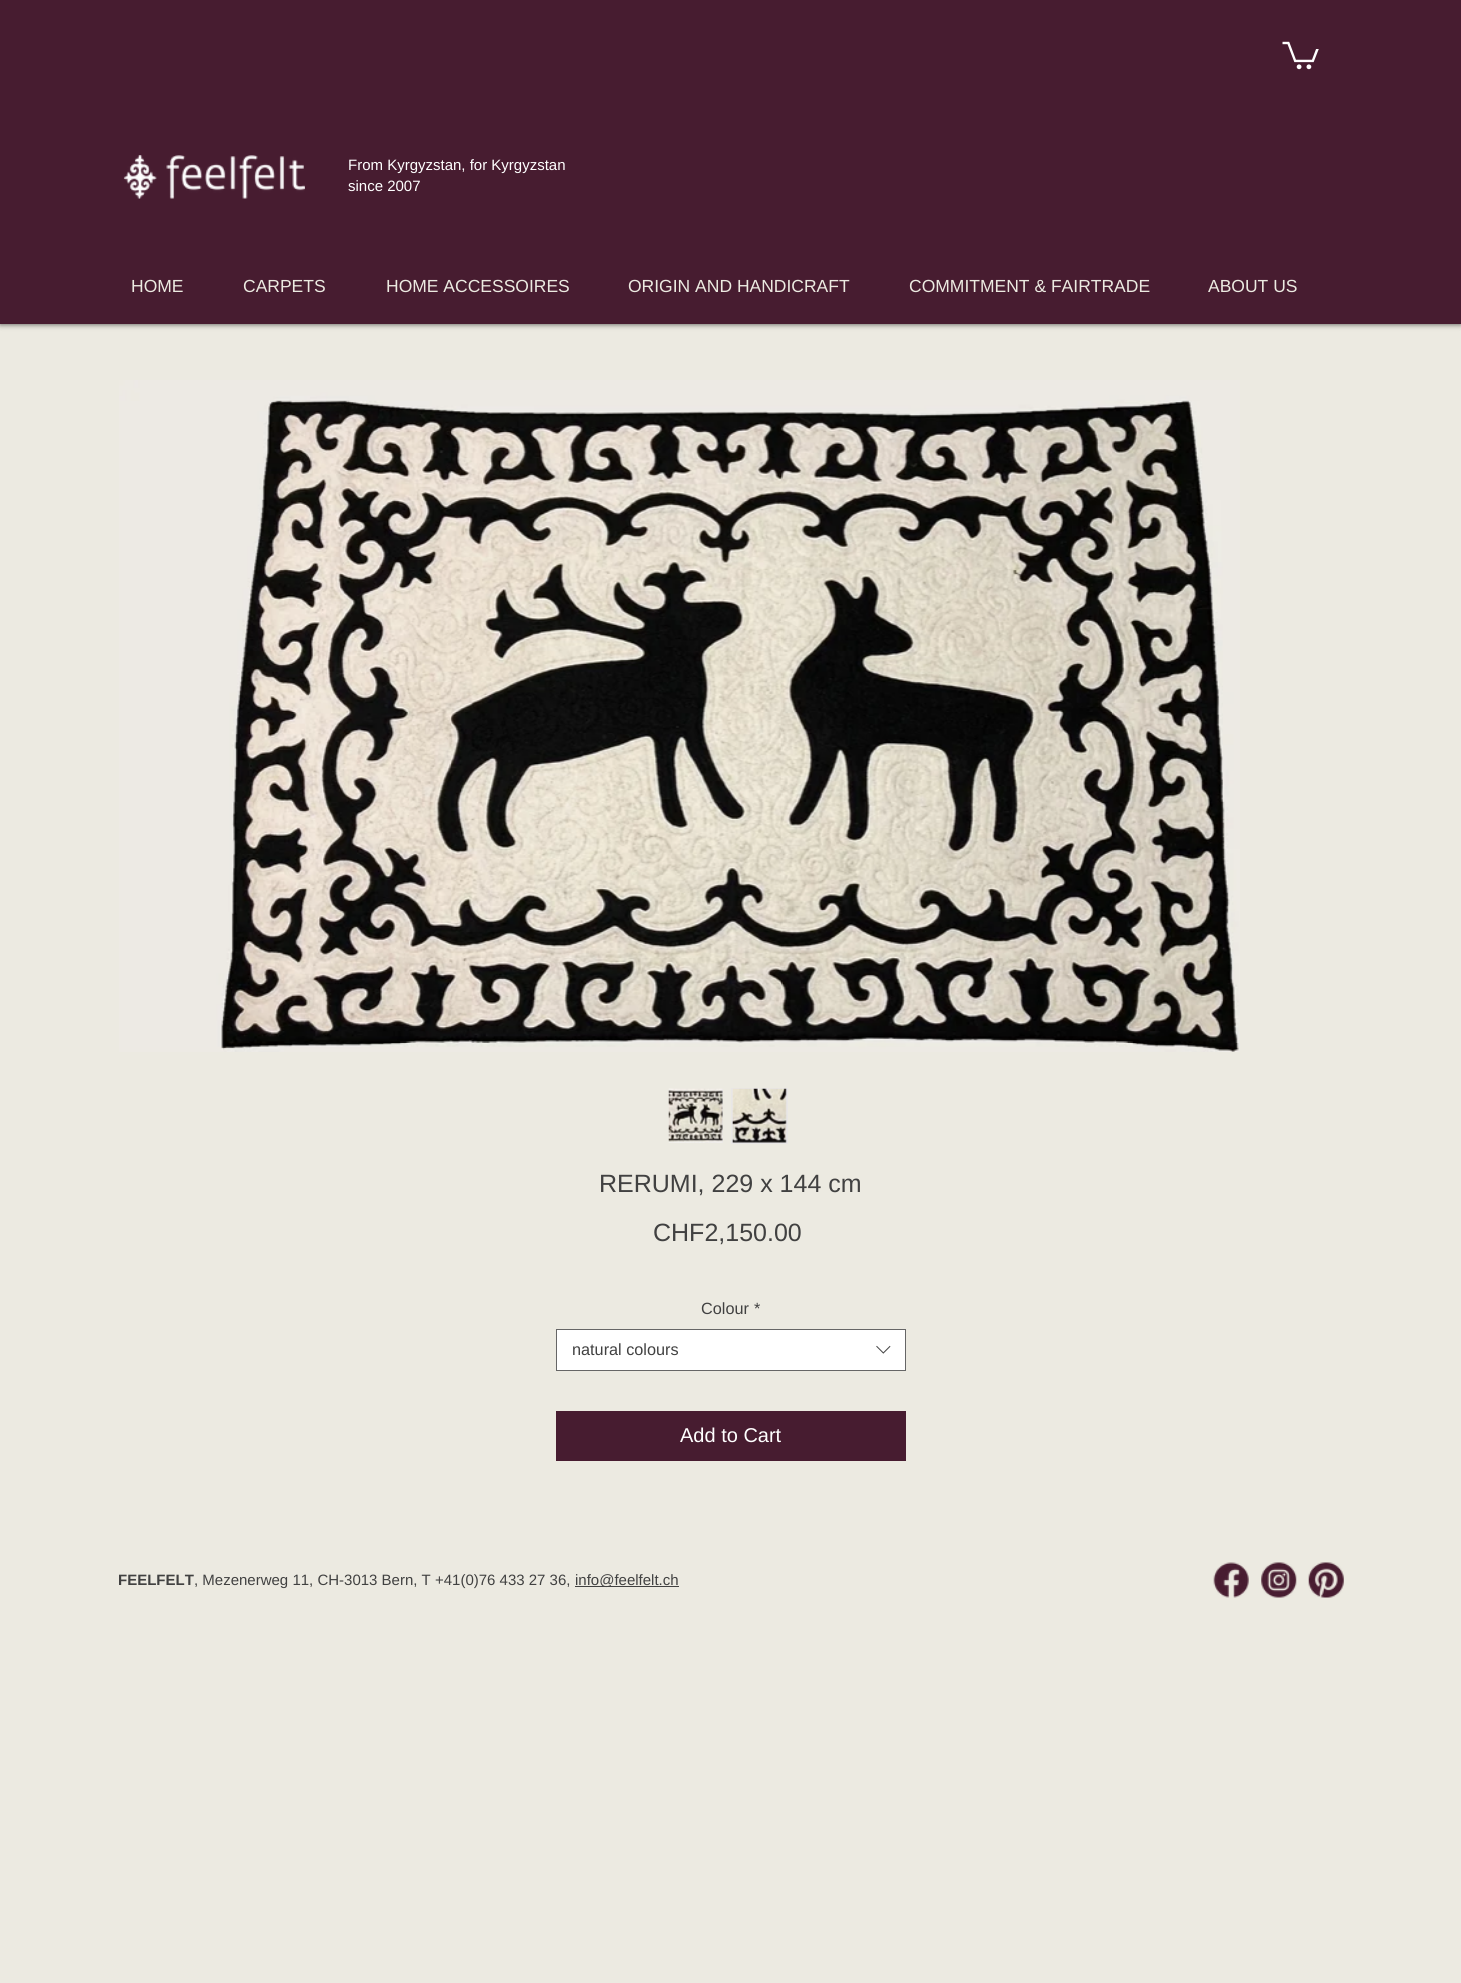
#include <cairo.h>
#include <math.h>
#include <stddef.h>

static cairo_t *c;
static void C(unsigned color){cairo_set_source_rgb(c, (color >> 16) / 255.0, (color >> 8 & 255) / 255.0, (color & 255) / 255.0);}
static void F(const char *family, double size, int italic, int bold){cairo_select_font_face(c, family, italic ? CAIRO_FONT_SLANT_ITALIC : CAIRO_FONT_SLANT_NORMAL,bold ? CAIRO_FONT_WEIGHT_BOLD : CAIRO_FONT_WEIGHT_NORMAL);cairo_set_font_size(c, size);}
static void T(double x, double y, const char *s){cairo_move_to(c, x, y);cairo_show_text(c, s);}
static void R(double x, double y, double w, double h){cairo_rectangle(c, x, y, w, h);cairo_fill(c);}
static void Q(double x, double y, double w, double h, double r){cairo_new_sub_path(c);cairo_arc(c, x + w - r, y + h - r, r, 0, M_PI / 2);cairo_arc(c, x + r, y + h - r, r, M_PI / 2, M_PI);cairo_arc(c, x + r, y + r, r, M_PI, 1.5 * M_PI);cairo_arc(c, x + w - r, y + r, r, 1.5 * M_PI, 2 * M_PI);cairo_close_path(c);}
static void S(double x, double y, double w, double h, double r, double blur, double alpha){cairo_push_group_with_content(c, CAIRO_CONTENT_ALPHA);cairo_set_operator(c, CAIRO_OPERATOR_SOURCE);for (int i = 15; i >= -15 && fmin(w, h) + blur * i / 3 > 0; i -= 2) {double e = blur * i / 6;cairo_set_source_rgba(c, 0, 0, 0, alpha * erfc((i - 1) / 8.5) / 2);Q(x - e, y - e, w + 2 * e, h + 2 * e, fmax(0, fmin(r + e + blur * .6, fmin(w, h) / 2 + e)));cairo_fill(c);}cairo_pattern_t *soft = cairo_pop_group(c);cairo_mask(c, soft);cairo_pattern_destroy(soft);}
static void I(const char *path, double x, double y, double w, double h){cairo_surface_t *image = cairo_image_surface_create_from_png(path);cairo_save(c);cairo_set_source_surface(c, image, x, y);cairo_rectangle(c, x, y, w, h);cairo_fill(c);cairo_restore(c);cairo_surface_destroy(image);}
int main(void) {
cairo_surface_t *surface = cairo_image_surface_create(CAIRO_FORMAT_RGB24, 1461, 1983);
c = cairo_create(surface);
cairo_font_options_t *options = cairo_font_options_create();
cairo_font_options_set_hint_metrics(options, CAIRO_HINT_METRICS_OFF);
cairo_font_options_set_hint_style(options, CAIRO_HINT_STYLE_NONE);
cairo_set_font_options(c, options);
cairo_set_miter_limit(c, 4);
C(0xeceae1);
cairo_paint(c);
C(0x000000);
S(0,0,1461,324,0,3,.7);
C(0x471c30);
R(0,0,1461,324);
I("1.png",1282,41,37,29);
I("2.png",123,155,182,44);
F("Liberation Sans",15,0,0);
C(0xffffff);
T(348,170,"From Kyrgyzstan, for Kyrgyzstan");
T(348,191,"since 2007");
F("Liberation Sans",17.5,0,0);
C(0xeceae1);
T(131,292,"HOME");
T(243,292,"CARPETS");
T(386,292,"HOME ACCESSOIRES");
T(628,292,"ORIGIN AND HANDICRAFT");
T(909,292,"COMMITMENT & FAIRTRADE");
T(1208,292,"ABOUT US");
I("3.png",119,380,1121,672);
C(0xe8e6e6);
R(669,1089,54,54);
I("4.png",668,1088,55,55);
R(731,1088,57,56);
I("5.png",732,1088,55,55);
F("Liberation Sans",25,0,0);
C(0x414141);
T(599,1192,"RERUMI, 229 x 144 cm");
T(653,1241,"CHF2,150.00");
F("Liberation Sans",16.25,0,0);
T(701,1314,"Colour");
T(754,1314,"*");
C(0xffffff);
cairo_rectangle(c,556.5,1329.5,349,41);
cairo_fill_preserve(c);
C(0x666666);
cairo_set_line_width(c,1);
cairo_stroke(c);
C(0x414141);
T(572,1355,"natural colours");
I("6.png",876,1345,15,9);
C(0x471c30);
R(556,1411,350,50);
F("Liberation Sans",20,0,0);
C(0xffffff);
T(680,1442,"Add to Cart");
F("Liberation Sans",15,0,1);
C(0x414141);
T(118,1585,"FEELFELT");
F("Liberation Sans",15,0,0);
T(194,1585,", Mezenerweg 11, CH-3013 Bern, T +41(0)76 433 27 36,");
R(575,1586,104,1);
T(575,1585,"info@feelfelt.ch");
I("7.png",1213,1562,36,36);
I("8.png",1261,1562,36,36);
I("9.png",1308,1562,36,36);
cairo_surface_write_to_png(surface, "o.png");
cairo_font_options_destroy(options);
cairo_destroy(c);
cairo_surface_destroy(surface);
return 0;
}
